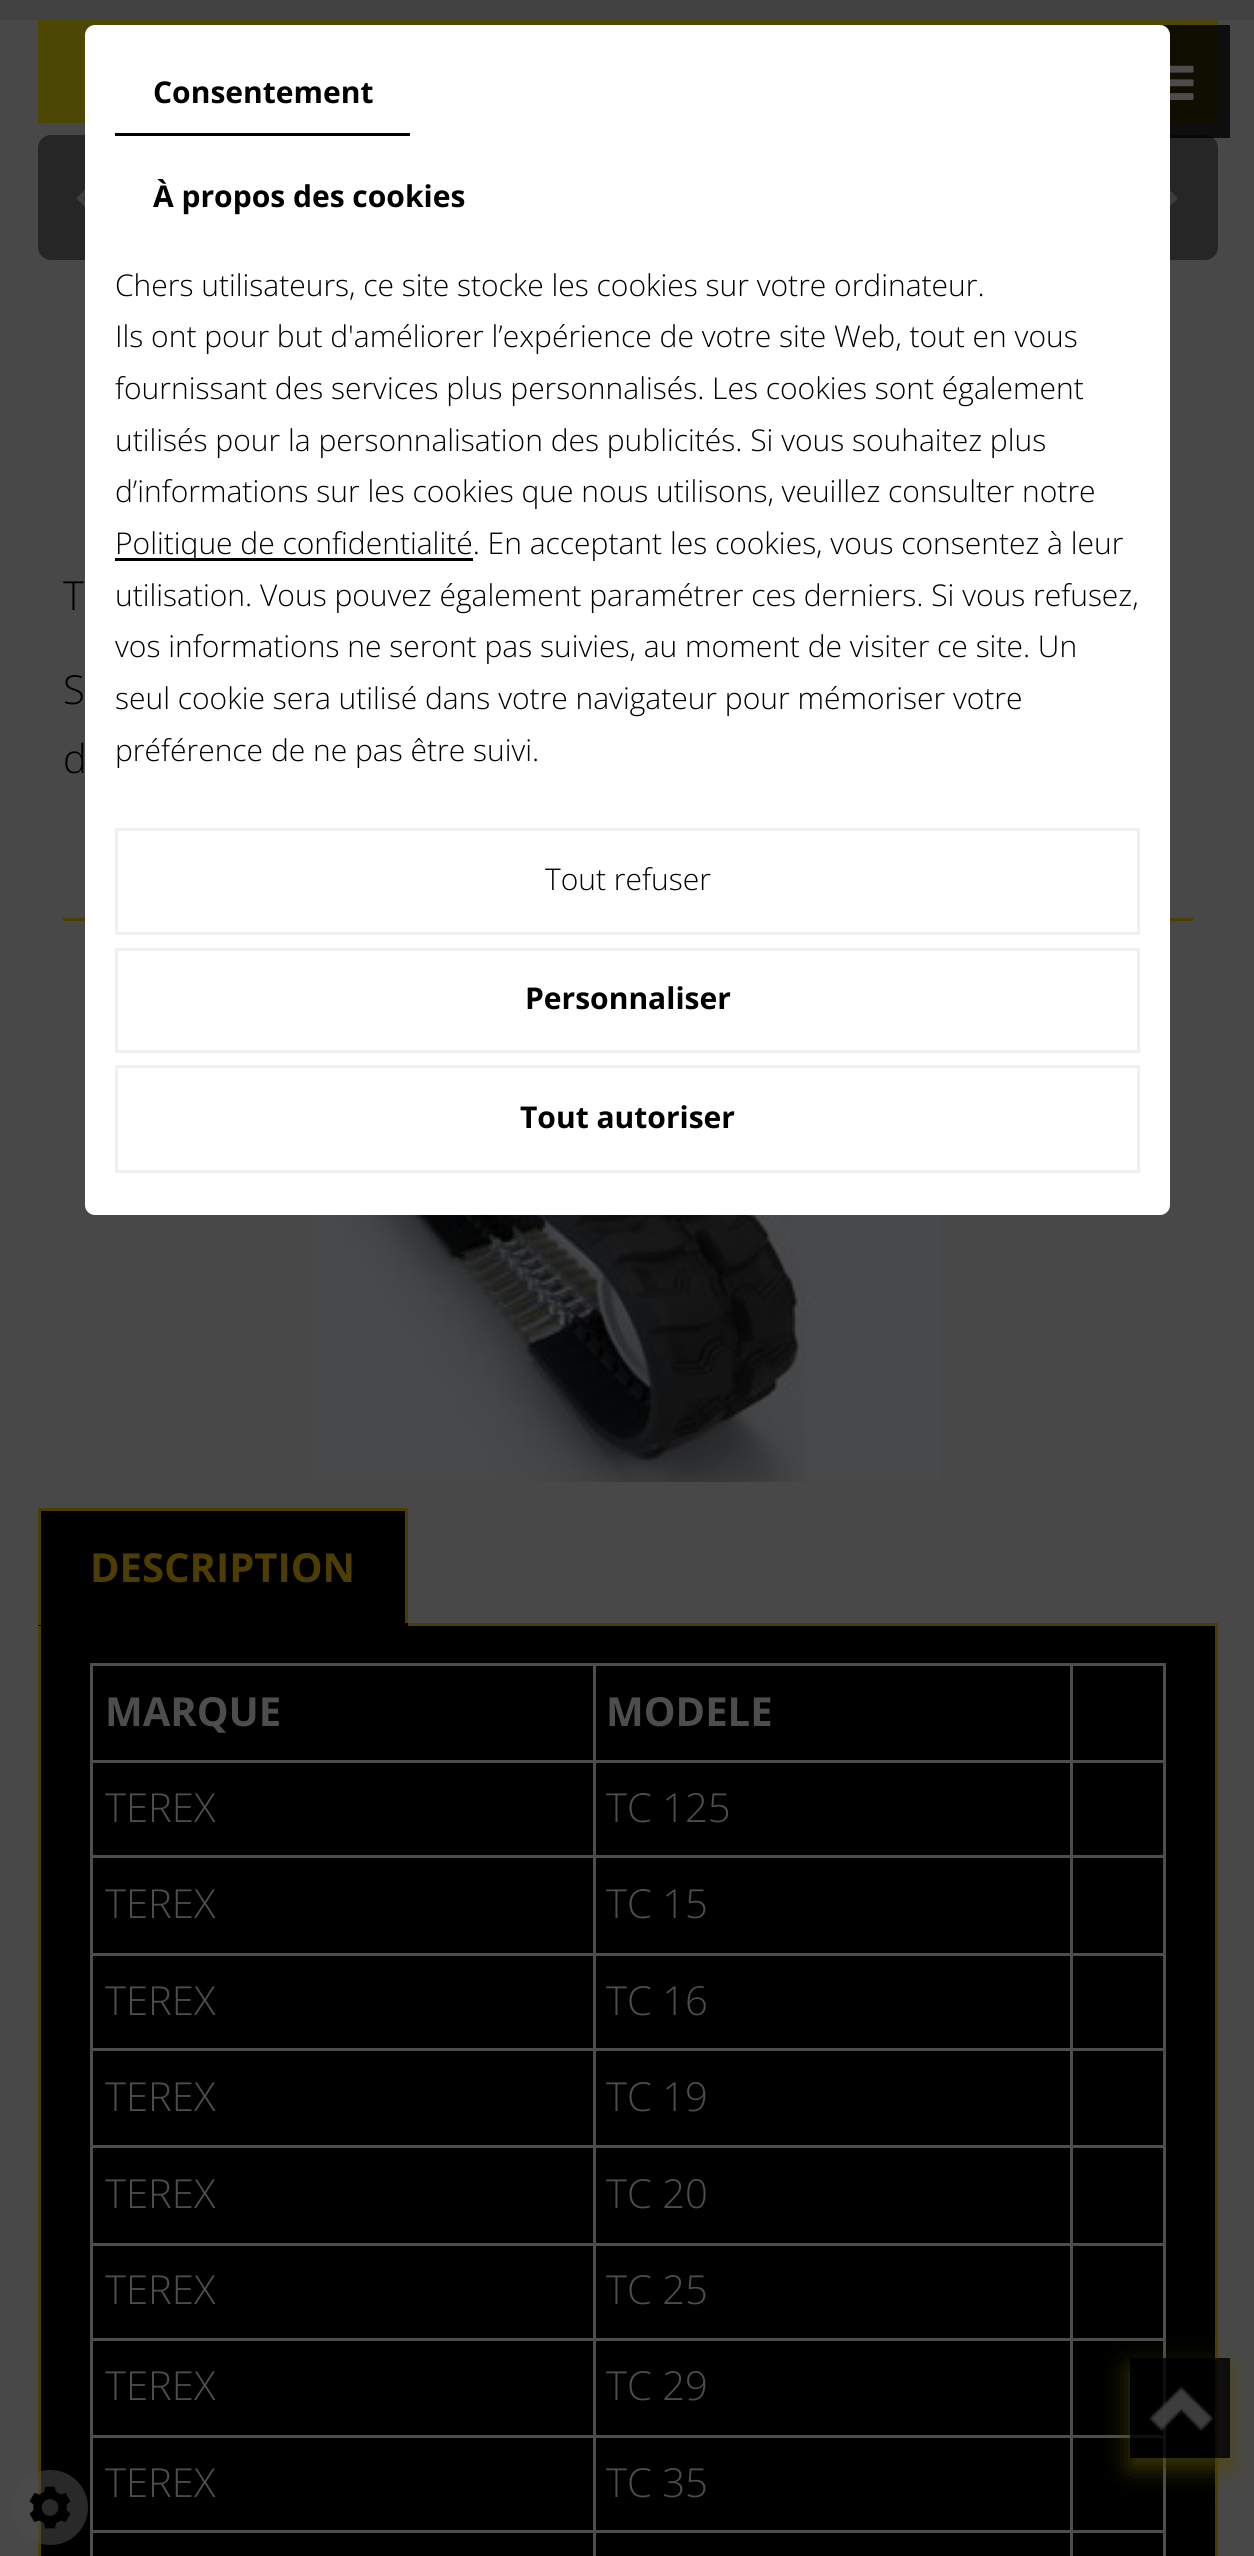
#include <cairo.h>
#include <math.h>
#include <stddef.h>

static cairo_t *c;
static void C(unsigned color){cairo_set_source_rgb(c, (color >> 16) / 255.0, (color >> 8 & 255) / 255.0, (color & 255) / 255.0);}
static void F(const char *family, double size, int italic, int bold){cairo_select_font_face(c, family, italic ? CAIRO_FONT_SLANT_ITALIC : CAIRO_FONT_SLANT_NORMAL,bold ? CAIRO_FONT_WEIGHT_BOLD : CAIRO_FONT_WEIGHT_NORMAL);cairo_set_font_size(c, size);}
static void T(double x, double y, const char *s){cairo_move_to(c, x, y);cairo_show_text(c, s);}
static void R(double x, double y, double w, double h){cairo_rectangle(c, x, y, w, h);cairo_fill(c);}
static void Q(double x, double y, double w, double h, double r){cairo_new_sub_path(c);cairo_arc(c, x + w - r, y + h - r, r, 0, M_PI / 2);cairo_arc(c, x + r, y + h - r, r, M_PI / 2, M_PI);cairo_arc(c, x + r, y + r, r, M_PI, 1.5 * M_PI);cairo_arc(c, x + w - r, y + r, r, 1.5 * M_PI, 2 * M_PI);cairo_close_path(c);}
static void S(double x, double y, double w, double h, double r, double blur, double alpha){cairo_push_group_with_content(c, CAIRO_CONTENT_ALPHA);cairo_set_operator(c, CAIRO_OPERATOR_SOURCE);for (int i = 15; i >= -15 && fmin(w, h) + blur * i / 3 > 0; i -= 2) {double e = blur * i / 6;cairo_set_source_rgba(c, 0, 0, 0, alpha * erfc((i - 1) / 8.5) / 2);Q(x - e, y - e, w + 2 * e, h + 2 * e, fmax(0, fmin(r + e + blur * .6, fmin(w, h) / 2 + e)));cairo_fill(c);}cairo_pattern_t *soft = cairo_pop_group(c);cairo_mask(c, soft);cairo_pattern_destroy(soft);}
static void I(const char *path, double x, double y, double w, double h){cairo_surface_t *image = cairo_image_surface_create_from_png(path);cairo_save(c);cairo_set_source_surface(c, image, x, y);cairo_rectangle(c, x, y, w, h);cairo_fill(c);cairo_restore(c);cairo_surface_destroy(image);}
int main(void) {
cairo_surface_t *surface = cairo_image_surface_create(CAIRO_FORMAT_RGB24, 1254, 2556);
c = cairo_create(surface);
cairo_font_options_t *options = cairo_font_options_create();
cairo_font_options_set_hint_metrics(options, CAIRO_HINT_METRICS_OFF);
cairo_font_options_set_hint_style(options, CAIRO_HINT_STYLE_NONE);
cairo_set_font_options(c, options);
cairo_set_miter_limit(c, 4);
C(0x484848);
cairo_paint(c);
C(0x4d4704);
R(38,20,1180,103);
C(0x262626);
Q(1118,135,100,125,13);
cairo_fill(c);
cairo_set_source_rgba(c,0,0,0,0.8);
R(1160,25,70,113);
C(0x262626);
Q(38,135,100,125,13);
cairo_fill(c);
C(0x4d3d00);
R(63,918,1130,3);
C(0xffffff);
Q(85,25,1085,1190,10);
cairo_fill(c);
C(0x000000);
R(115,133,295,3);
F("Open Sans",30,0,1);
T(153,103,"Consentement");
T(153,207,"À propos des cookies");
F("Open Sans Light",30,0,0);
T(115,296,"Chers utilisateurs, ce site stocke les cookies sur votre ordinateur.");
T(115,347,"Ils ont pour but d'améliorer l’expérience de votre site Web, tout en vous");
T(115,399,"fournissant des services plus personnalisés. Les cookies sont également");
T(115,451,"utilisés pour la personnalisation des publicités. Si vous souhaitez plus");
T(115,502,"d’informations sur les cookies que nous utilisons, veuillez consulter notre");
R(115,558,358,3);
T(115,554,"Politique de confidentialité. En acceptant les cookies, vous consentez à leur");
T(115,606,"utilisation. Vous pouvez également paramétrer ces derniers. Si vous refusez,");
T(115,657,"vos informations ne seront pas suivies, au moment de visiter ce site. Un");
T(115,709,"seul cookie sera utilisé dans votre navigateur pour mémoriser votre");
T(115,761,"préférence de ne pas être suivi.");
cairo_rectangle(c,116.5,829.5,1022,104);
C(0xf0f0f0);
cairo_set_line_width(c,3);
cairo_stroke(c);
C(0x000000);
T(545,890,"Tout refuser");
cairo_rectangle(c,116.5,949.5,1022,102);
C(0xf0f0f0);
cairo_stroke(c);
F("Open Sans",30,0,1);
C(0x000000);
T(525,1009,"Personnaliser");
cairo_rectangle(c,116.5,1066.5,1022,105);
C(0xf0f0f0);
cairo_stroke(c);
C(0x000000);
T(520,1128,"Tout autoriser");
I("1.png",1170,65,24,35);
cairo_rectangle(c,39.5,1624.5,1177,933);
cairo_fill_preserve(c);
C(0x4d3d00);
cairo_stroke(c);
cairo_set_source_rgba(c,0.302,0.302,0.302,0.54);
cairo_arc(c,50.5,2507.5,37.5,0,2 * M_PI);
cairo_fill(c);
I("2.png",29,2486,42,43);
C(0x424242);
R(0,0,1254,20);
I("3.png",76,189,9,18);
I("4.png",1170,190,8,16);
F("Open Sans Light",40,0,0);
C(0x000000);
T(63,610,"T");
T(63,704,"S");
T(63,773,"d");
I("5.png",315,1215,625,267);
R(41,1511,364,112);
C(0x4d3d00);
R(38,1508,370,3);
R(405,1508,3,117);
C(0x000000);
R(38,1623,370,3);
C(0x4d3d00);
R(38,1508,3,117);
F("Open Sans",40,0,1);
T(90,1582,"DESCRIPTION");
C(0x4d4d4d);
R(1070,1663,95,3);
R(1070,1760,95,3);
R(1070,1855,95,3);
R(1070,1953,95,3);
R(1070,2048,95,3);
R(1070,2145,95,3);
R(1070,2243,95,3);
R(1070,2338,95,3);
R(1070,2435,95,3);
R(1070,2530,95,3);
R(1070,2530,3,26);
R(593,2530,480,3);
R(1070,2435,3,98);
R(593,2435,480,3);
R(1070,2338,3,100);
R(593,2338,480,3);
R(1070,2243,3,97);
R(593,2243,480,3);
R(1070,2145,3,100);
R(593,2145,480,3);
R(1070,2048,3,100);
R(593,2048,480,3);
R(1070,1953,3,97);
R(593,1953,480,3);
R(1070,1855,3,100);
R(593,1855,480,3);
R(1070,1760,3,98);
R(593,1760,480,3);
R(1070,1663,3,100);
R(593,1663,480,3);
R(593,2530,3,26);
R(90,2530,505,3);
R(593,2435,3,98);
R(90,2435,505,3);
R(593,2338,3,100);
R(90,2338,505,3);
R(593,2243,3,97);
R(90,2243,505,3);
R(593,2145,3,100);
R(90,2145,505,3);
R(593,2048,3,100);
R(90,2048,505,3);
R(593,1953,3,97);
R(90,1953,505,3);
R(593,1855,3,100);
R(90,1855,505,3);
R(593,1760,3,98);
R(90,1760,505,3);
R(593,1663,3,100);
R(90,1663,505,3);
R(90,2530,3,26);
R(90,2435,3,98);
R(90,2338,3,100);
R(90,2243,3,97);
R(90,2145,3,100);
R(90,2048,3,100);
R(90,1953,3,97);
R(90,1855,3,100);
R(90,1760,3,98);
R(90,1663,3,100);
T(105,1726,"MARQUE");
T(606,1726,"MODELE");
R(1163,2530,3,26);
R(1163,2435,3,98);
R(1163,2338,3,100);
R(1163,2243,3,97);
R(1163,2145,3,100);
R(1163,2048,3,100);
R(1163,1953,3,97);
R(1163,1855,3,100);
R(1163,1760,3,98);
R(1163,1663,3,100);
F("Open Sans Light",40,0,0);
T(105,1822,"TEREX");
T(606,1822,"TC 125");
T(105,1918,"TEREX");
T(606,1918,"TC 15");
T(105,2015,"TEREX");
T(606,2015,"TC 16");
T(105,2111,"TEREX");
T(606,2111,"TC 19");
T(105,2208,"TEREX");
T(606,2208,"TC 20");
T(105,2304,"TEREX");
T(606,2304,"TC 25");
T(105,2400,"TEREX");
T(606,2400,"TC 29");
T(105,2497,"TEREX");
T(606,2497,"TC 35");
cairo_save(c);
cairo_set_fill_rule(c,CAIRO_FILL_RULE_EVEN_ODD);
cairo_new_path(c);
cairo_move_to(c,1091,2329);
cairo_line_to(c,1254,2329);
cairo_line_to(c,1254,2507);
cairo_line_to(c,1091,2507);
cairo_close_path(c);
cairo_move_to(c,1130,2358);
cairo_line_to(c,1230,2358);
cairo_line_to(c,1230,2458);
cairo_line_to(c,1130,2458);
cairo_close_path(c);
cairo_clip(c);
C(0x4d4704);
S(1130,2368,100,100,0,12.5,.8);
cairo_restore(c);
cairo_set_source_rgba(c,0,0,0,0.8);
R(1130,2358,100,100);
I("6.png",1149,2386,65,46);
cairo_surface_write_to_png(surface, "o.png");
cairo_font_options_destroy(options);
cairo_destroy(c);
cairo_surface_destroy(surface);
return 0;
}
